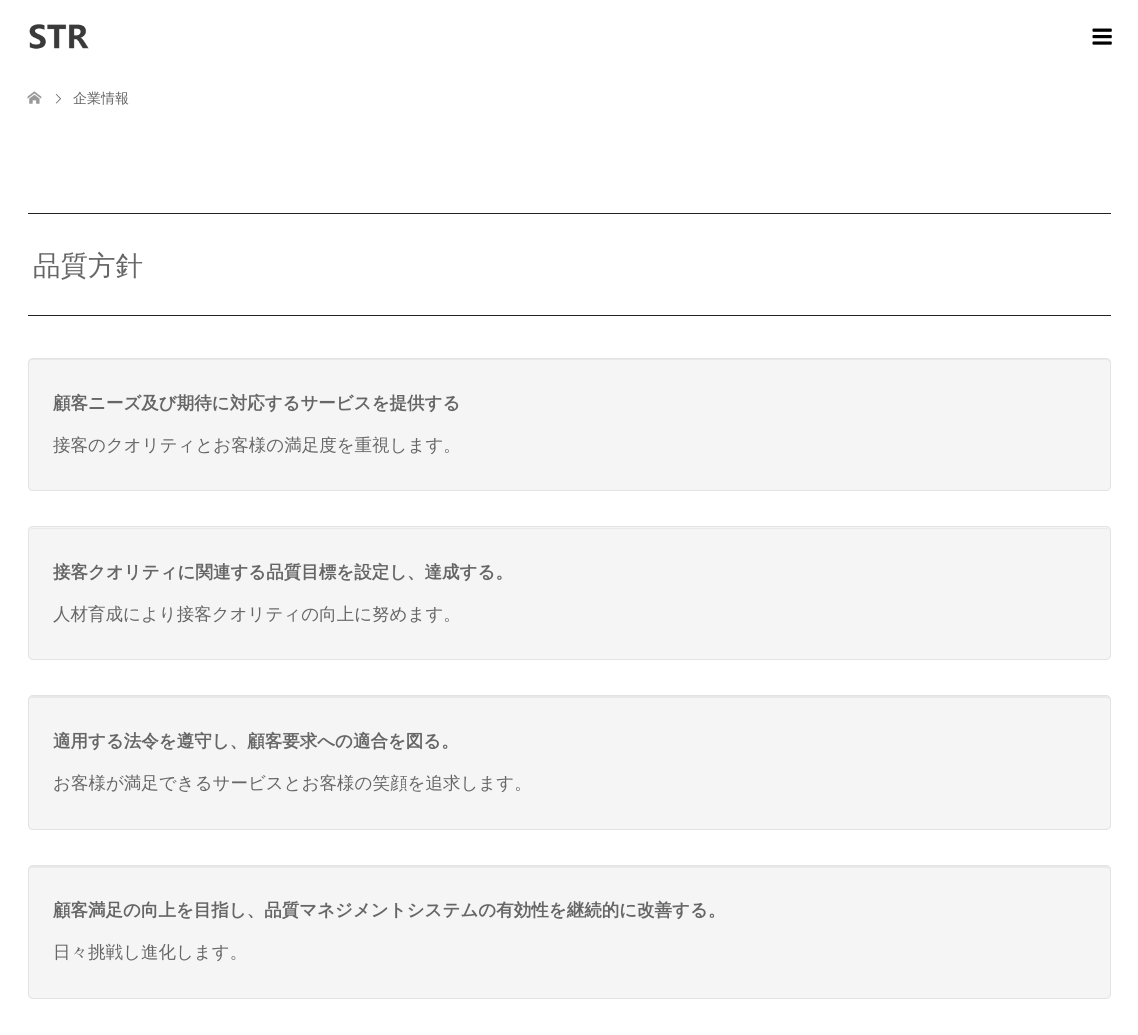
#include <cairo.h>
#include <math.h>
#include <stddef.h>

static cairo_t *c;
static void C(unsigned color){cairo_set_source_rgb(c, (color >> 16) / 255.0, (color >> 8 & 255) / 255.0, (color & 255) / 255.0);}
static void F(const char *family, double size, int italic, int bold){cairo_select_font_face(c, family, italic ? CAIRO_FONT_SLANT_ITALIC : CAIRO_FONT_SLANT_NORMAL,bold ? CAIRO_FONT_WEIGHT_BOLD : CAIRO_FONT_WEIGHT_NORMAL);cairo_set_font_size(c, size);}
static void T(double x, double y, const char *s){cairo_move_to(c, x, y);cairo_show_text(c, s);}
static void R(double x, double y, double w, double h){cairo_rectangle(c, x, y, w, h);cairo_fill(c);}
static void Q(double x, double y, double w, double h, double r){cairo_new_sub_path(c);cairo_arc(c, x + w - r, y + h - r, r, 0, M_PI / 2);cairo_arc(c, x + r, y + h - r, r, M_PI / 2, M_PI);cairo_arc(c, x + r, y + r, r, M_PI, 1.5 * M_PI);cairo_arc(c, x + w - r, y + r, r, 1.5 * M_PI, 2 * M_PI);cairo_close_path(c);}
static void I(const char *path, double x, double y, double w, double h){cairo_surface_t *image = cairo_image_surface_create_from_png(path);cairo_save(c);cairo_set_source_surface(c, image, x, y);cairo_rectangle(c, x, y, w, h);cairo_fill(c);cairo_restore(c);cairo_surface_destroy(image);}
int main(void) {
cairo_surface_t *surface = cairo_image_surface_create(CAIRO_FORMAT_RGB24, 1138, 1035);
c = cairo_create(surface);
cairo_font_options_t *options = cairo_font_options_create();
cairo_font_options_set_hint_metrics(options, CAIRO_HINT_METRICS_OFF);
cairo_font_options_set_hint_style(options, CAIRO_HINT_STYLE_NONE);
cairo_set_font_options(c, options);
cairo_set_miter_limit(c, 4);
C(0xffffff);
cairo_paint(c);
I("1.png",29,24,60,25);
I("2.png",1092,28,20,17);
I("3.png",27,91,15,13);
I("4.png",55,93,6,11);
F("WenQuanYi Zen Hei Medium",14,0,0);
C(0x666666);
T(73,103,"企業情報");
C(0x222222);
R(28,213,1083,1);
R(28,315,1083,1);
F("WenQuanYi Zen Hei Medium",27.5,0,0);
C(0x666666);
T(33,275,"品質方針");
C(0xf5f5f5);
Q(28,358,1083,133,5);
cairo_fill(c);
C(0xe9e9e9);
cairo_new_path(c);
cairo_move_to(c,32,360);
cairo_line_to(c,1106,360);
cairo_curve_to(c,1108,360,1110,362,1110,364);
cairo_curve_to(c,1110,361,1109,359,1106,359);
cairo_line_to(c,33,359);
cairo_curve_to(c,30,359,29,361,29,364);
cairo_curve_to(c,29,362,30,360,32,360);
cairo_close_path(c);
cairo_fill(c);
Q(28.5,358.5,1082,132,4.5);
C(0xe3e3e3);
cairo_set_line_width(c,1);
cairo_stroke(c);
F("WenQuanYi Zen Hei",17.5,0,1);
C(0x666666);
T(53,409,"顧客ニーズ及び期待に対応するサービスを提供する");
F("WenQuanYi Zen Hei Medium",17.5,0,0);
T(53,451,"接客のクオリティとお客様の満足度を重視します。");
C(0xf5f5f5);
Q(28,526,1083,134,5);
cairo_fill(c);
C(0xe9e9e9);
cairo_new_path(c);
cairo_move_to(c,32,529);
cairo_line_to(c,1106,529);
cairo_curve_to(c,1108,529,1110,530,1110,532);
cairo_curve_to(c,1110,530,1108,528,1106,528);
cairo_line_to(c,33,528);
cairo_curve_to(c,32,528,30,529,30,530);
cairo_close_path(c);
cairo_fill(c);
Q(28.5,526.5,1082,133,4.5);
C(0xe3e3e3);
cairo_stroke(c);
F("WenQuanYi Zen Hei",17.5,0,1);
C(0x666666);
T(53,578,"接客クオリティに関連する品質目標を設定し、達成する。");
F("WenQuanYi Zen Hei Medium",17.5,0,0);
T(53,620,"人材育成により接客クオリティの向上に努めます。");
C(0xf5f5f5);
Q(28,695,1083,135,5);
cairo_fill(c);
C(0xe9e9e9);
cairo_new_path(c);
cairo_move_to(c,32,698);
cairo_line_to(c,1106,698);
cairo_curve_to(c,1108,698,1110,699,1110,701);
cairo_curve_to(c,1110,698,1109,696,1106,696);
cairo_line_to(c,33,696);
cairo_curve_to(c,30,696,29,698,29,701);
cairo_curve_to(c,29,699,30,698,32,698);
cairo_close_path(c);
cairo_fill(c);
Q(28.5,695.5,1082,134,4.5);
C(0xe3e3e3);
cairo_stroke(c);
F("WenQuanYi Zen Hei",17.5,0,1);
C(0x666666);
T(53,747,"適用する法令を遵守し、顧客要求への適合を図る。");
F("WenQuanYi Zen Hei Medium",17.5,0,0);
T(53,789,"お客様が満足できるサービスとお客様の笑顔を追求します。");
C(0xf5f5f5);
Q(28,865,1083,134,5);
cairo_fill(c);
C(0xe9e9e9);
cairo_new_path(c);
cairo_move_to(c,32,868);
cairo_line_to(c,1106,868);
cairo_curve_to(c,1108,868,1110,869,1110,871);
cairo_curve_to(c,1110,868,1109,866,1106,866);
cairo_line_to(c,33,866);
cairo_curve_to(c,30,866,29,868,29,871);
cairo_curve_to(c,29,869,30,868,32,868);
cairo_close_path(c);
cairo_fill(c);
Q(28.5,865.5,1082,133,4.5);
C(0xe3e3e3);
cairo_stroke(c);
F("WenQuanYi Zen Hei",17.5,0,1);
C(0x666666);
T(53,916,"顧客満足の向上を目指し、品質マネジメントシステムの有効性を継続的に改善する。");
F("WenQuanYi Zen Hei Medium",17.5,0,0);
T(53,958,"日々挑戦し進化します。");
cairo_surface_write_to_png(surface, "o.png");
cairo_font_options_destroy(options);
cairo_destroy(c);
cairo_surface_destroy(surface);
return 0;
}
